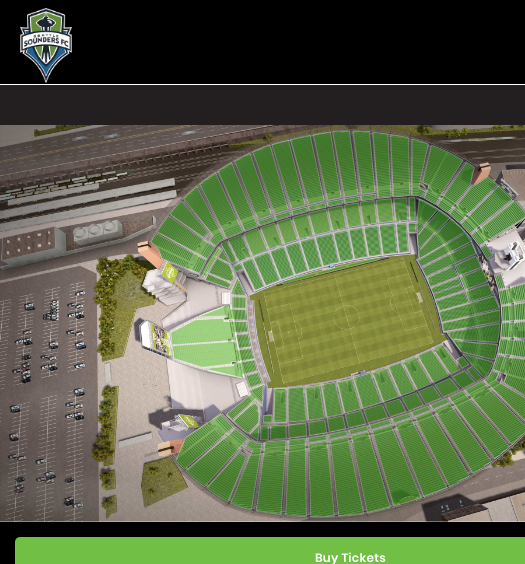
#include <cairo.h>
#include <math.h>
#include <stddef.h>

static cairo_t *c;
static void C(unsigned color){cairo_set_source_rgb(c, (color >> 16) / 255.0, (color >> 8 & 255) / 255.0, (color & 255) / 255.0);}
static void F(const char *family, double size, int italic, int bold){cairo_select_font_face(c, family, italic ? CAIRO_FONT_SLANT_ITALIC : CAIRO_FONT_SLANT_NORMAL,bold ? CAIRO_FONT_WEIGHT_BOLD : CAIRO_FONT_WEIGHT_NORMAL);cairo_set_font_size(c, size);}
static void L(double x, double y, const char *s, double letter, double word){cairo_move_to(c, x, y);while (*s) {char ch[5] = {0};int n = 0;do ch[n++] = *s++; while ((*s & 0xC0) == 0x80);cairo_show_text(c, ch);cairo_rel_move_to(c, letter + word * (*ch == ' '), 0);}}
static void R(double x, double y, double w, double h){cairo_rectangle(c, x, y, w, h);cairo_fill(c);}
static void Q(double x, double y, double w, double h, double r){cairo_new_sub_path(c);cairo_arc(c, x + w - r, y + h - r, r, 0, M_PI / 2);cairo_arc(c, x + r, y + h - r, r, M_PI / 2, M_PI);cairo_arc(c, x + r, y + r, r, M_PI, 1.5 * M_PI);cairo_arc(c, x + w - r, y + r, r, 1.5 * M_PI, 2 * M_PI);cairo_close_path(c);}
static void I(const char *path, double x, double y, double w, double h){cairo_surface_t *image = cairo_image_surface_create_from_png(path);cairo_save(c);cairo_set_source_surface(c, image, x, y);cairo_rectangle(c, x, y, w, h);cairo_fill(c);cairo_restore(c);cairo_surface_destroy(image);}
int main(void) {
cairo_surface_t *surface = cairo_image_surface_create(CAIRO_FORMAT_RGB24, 525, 564);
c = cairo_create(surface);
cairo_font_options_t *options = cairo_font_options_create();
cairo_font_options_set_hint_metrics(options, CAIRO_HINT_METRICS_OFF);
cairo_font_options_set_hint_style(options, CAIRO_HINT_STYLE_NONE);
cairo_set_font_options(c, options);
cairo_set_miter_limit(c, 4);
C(0x000000);
cairo_paint(c);
C(0xffffff);
R(0,84,525,1);
I("1.png",20,8,52,75);
R(0,521,525,1);
C(0x231f20);
R(0,85,525,40);
I("2.png",0,125,525,397);
C(0x71bf45);
Q(15,537,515,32,5);
cairo_fill(c);
F("Poppins SemiBold",12,0,0);
C(0xffffff);
L(315,562,"Buy Tickets",.25,0);
cairo_surface_write_to_png(surface, "o.png");
cairo_font_options_destroy(options);
cairo_destroy(c);
cairo_surface_destroy(surface);
return 0;
}
